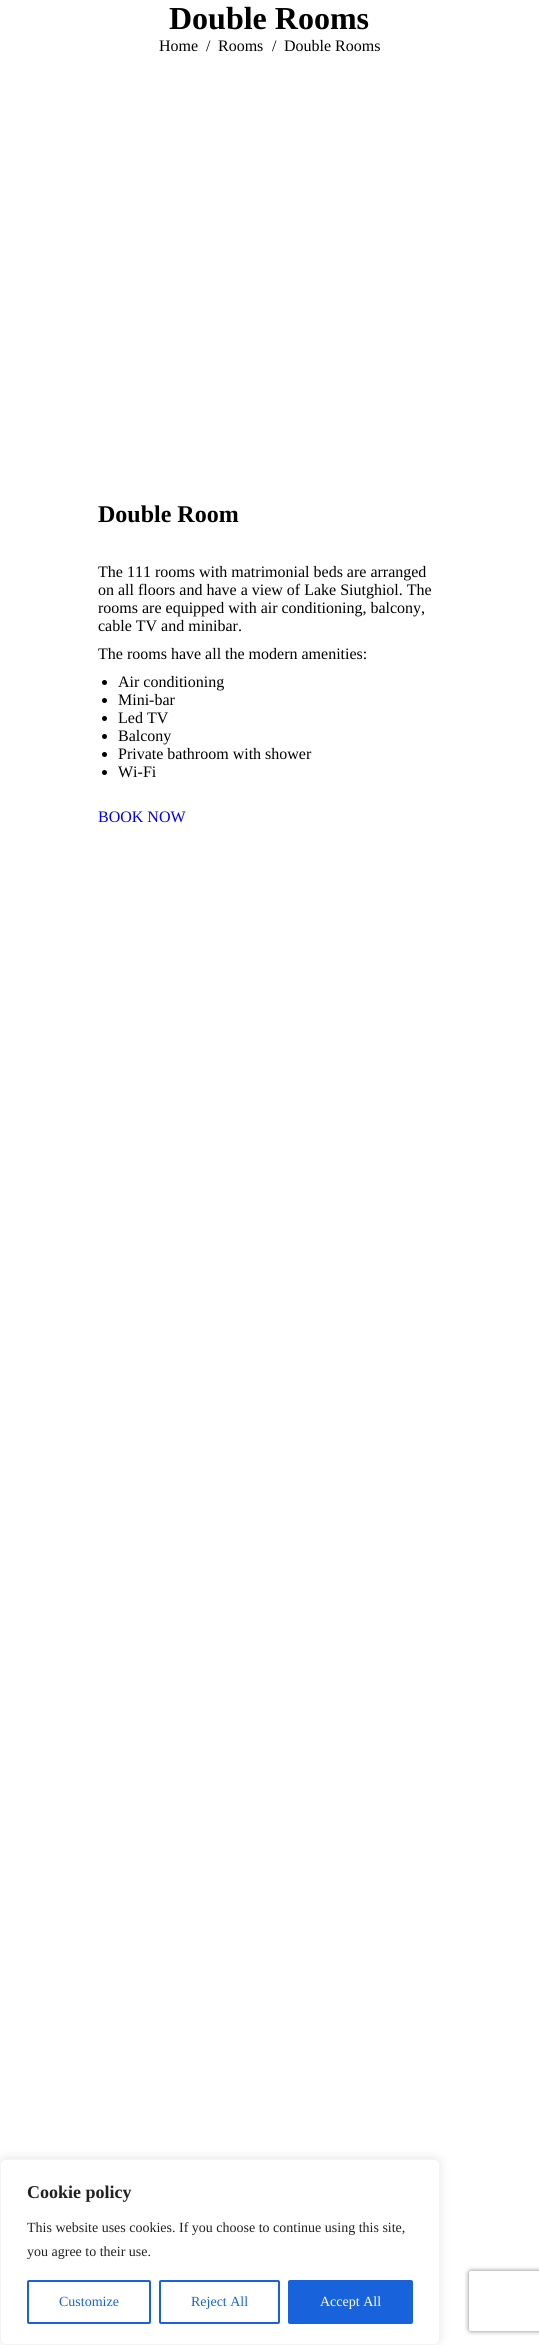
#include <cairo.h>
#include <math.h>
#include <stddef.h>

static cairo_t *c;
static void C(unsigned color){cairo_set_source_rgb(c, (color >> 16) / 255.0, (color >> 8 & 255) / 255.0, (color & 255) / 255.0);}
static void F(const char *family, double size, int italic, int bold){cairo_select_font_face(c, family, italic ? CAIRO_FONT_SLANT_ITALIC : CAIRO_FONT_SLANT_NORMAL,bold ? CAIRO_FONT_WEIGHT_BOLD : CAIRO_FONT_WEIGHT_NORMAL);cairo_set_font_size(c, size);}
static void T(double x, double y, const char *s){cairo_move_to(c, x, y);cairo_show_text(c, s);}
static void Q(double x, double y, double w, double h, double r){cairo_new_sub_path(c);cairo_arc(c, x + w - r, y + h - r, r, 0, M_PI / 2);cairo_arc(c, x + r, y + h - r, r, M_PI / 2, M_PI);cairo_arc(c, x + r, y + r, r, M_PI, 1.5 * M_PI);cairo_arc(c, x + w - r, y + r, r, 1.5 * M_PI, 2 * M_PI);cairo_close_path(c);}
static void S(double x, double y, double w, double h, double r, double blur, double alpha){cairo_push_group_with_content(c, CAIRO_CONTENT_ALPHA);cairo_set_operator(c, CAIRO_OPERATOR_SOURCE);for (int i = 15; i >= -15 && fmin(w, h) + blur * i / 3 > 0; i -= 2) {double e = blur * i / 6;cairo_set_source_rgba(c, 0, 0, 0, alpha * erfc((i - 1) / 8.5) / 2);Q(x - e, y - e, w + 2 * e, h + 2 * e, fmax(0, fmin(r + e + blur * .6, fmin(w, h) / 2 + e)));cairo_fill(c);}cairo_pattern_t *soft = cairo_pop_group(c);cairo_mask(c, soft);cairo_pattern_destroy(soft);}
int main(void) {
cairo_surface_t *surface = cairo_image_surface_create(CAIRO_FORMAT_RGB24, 539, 2345);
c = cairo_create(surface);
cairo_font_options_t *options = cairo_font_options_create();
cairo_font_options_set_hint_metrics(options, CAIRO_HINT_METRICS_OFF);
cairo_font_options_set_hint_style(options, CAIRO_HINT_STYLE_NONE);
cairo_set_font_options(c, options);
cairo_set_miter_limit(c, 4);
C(0xffffff);
cairo_paint(c);
F("Liberation Serif",32,0,1);
C(0x000000);
T(169,29,"Double Rooms");
F("Liberation Serif",16,0,0);
T(159,51,"Home");
T(206,51,"/");
T(218,51,"Rooms");
T(272,51,"/");
T(284,51,"Double Rooms");
F("Liberation Serif",24,0,1);
T(98,522,"Double Room");
F("Liberation Serif",16,0,0);
T(98,577,"The 111 rooms with matrimonial beds are arranged");
T(98,595,"on all floors and have a view of Lake Siutghiol. The");
T(98,613,"rooms are equipped with air conditioning, balcony,");
T(98,631,"cable TV and minibar.");
T(98,659,"The rooms have all the modern amenities:");
cairo_new_path(c);
cairo_arc(c,104.5,682.5,2.5,0,2 * M_PI);
cairo_fill(c);
T(118,687,"Air conditioning");
cairo_new_path(c);
cairo_arc(c,104.5,700.5,2.5,0,2 * M_PI);
cairo_fill(c);
T(118,705,"Mini-bar");
cairo_new_path(c);
cairo_arc(c,104.5,718.5,2.5,0,2 * M_PI);
cairo_fill(c);
T(118,723,"Led TV");
cairo_new_path(c);
cairo_arc(c,104.5,736.5,2.5,0,2 * M_PI);
cairo_fill(c);
T(118,741,"Balcony");
cairo_new_path(c);
cairo_arc(c,104.5,754.5,2.5,0,2 * M_PI);
cairo_fill(c);
T(118,759,"Private bathroom with shower");
cairo_new_path(c);
cairo_arc(c,104.5,772.5,2.5,0,2 * M_PI);
cairo_fill(c);
T(118,777,"Wi-Fi");
C(0x0000ee);
T(98,822,"BOOK NOW");
C(0xacabab);
S(0,2158,440,186,6,5,.3);
C(0xffffff);
Q(.5,2159.5,439,185,5.5);
cairo_fill_preserve(c);
C(0xf4f4f4);
cairo_set_line_width(c,1);
cairo_stroke(c);
F("Liberation Serif",18,0,1);
C(0x212121);
T(27,2198,"Cookie policy");
F("Liberation Serif",14,0,0);
T(27,2232,"This website uses cookies. If you choose to continue using this site,");
T(27,2256,"you agree to their use.");
Q(28,2281,122,42,1);
C(0x1863dc);
cairo_set_line_width(c,2);
cairo_stroke(c);
T(59,2306,"Customize");
Q(160,2281,119,42,1);
cairo_stroke(c);
T(191,2306,"Reject All");
Q(289,2281,123,42,1);
cairo_fill_preserve(c);
cairo_stroke(c);
C(0xffffff);
T(320,2306,"Accept All");
cairo_save(c);
cairo_set_fill_rule(c,CAIRO_FILL_RULE_EVEN_ODD);
cairo_new_path(c);
cairo_move_to(c,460,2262);
cairo_line_to(c,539,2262);
cairo_line_to(c,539,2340);
cairo_line_to(c,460,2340);
cairo_close_path(c);
cairo_move_to(c,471,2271);
cairo_line_to(c,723,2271);
cairo_curve_to(c,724,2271,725,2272,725,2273);
cairo_line_to(c,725,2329);
cairo_curve_to(c,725,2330,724,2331,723,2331);
cairo_line_to(c,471,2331);
cairo_curve_to(c,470,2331,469,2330,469,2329);
cairo_line_to(c,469,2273);
cairo_curve_to(c,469,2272,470,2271,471,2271);
cairo_close_path(c);
cairo_clip(c);
C(0x808080);
S(469,2271,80,60,2,2.5,1);
cairo_restore(c);
cairo_surface_write_to_png(surface, "o.png");
cairo_font_options_destroy(options);
cairo_destroy(c);
cairo_surface_destroy(surface);
return 0;
}
